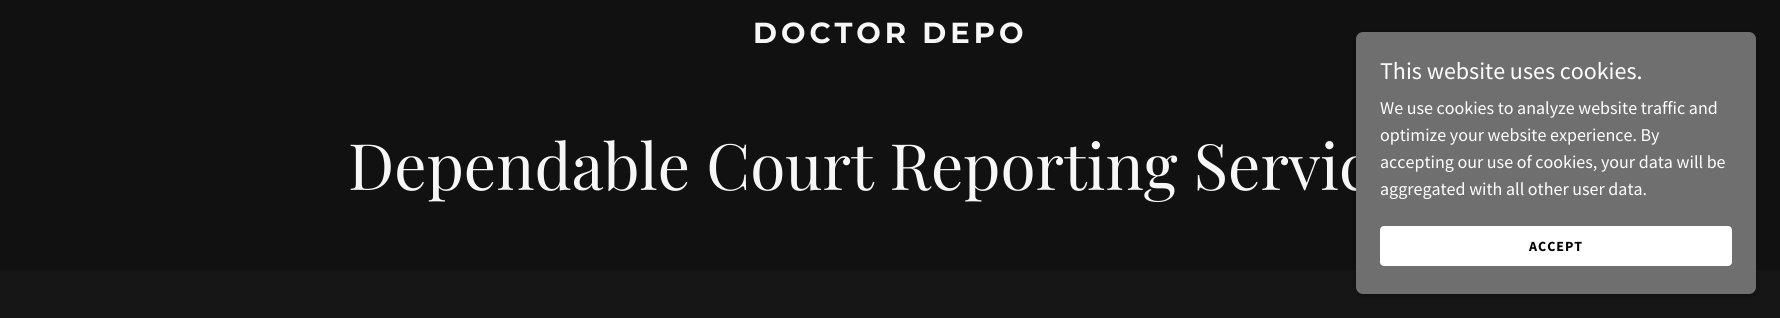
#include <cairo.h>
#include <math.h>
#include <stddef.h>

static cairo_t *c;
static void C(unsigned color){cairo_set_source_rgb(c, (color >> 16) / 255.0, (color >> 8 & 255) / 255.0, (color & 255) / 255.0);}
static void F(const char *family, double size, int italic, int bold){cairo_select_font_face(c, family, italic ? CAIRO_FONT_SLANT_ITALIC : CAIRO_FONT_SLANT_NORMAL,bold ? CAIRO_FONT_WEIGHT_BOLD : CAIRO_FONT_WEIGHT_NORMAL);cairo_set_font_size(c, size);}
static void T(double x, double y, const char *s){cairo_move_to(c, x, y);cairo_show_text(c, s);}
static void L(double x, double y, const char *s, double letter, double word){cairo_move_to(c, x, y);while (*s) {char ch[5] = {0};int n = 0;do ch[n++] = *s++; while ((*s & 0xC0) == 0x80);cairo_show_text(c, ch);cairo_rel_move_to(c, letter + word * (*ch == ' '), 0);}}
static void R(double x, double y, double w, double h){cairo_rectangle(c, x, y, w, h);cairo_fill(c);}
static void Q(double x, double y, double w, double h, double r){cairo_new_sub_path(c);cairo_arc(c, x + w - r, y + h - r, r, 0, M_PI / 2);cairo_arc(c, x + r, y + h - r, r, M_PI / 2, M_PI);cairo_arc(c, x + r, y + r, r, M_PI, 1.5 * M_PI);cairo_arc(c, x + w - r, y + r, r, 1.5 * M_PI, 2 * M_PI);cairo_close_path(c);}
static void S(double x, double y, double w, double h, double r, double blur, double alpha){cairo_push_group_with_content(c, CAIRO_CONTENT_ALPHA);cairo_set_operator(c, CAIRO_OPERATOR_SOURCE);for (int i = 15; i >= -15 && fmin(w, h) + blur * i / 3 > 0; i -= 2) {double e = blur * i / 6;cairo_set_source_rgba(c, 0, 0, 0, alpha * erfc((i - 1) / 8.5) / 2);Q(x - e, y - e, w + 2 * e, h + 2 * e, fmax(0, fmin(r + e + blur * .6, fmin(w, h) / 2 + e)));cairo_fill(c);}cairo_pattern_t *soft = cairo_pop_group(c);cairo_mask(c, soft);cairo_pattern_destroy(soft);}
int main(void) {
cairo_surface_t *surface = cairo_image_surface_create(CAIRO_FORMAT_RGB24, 1780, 318);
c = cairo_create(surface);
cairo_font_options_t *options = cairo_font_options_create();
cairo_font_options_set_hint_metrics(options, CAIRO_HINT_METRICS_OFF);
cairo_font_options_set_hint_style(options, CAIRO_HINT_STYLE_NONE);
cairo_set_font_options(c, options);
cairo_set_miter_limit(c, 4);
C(0x161616);
cairo_paint(c);
C(0x111111);
R(0,0,1780,270);
F("Montserrat",29,0,1);
C(0xf7f7f7);
L(753,43,"DOCTOR DEPO",4,0);
F("Playfair Display",64,0,0);
T(348,190,"Dependable Court Reporting Servic");
C(0x000000);
S(1356,34,400,262,7,3,.3);
C(0x6f6f6f);
Q(1356,32,400,262,7);
cairo_fill(c);
F("Source Sans Pro",24,0,0);
C(0xffffff);
T(1380,79,"This website uses cookies.");
F("Source Sans Pro",18,0,0);
T(1380,114,"We use cookies to analyze website traffic and");
T(1380,141,"optimize your website experience. By");
T(1380,168,"accepting our use of cookies, your data will be");
T(1380,195,"aggregated with all other user data.");
Q(1380,226,352,40,4);
cairo_fill(c);
F("Source Sans Pro",14,0,1);
C(0x000000);
L(1529,251,"ACCEPT",1,0);
cairo_surface_write_to_png(surface, "o.png");
cairo_font_options_destroy(options);
cairo_destroy(c);
cairo_surface_destroy(surface);
return 0;
}
